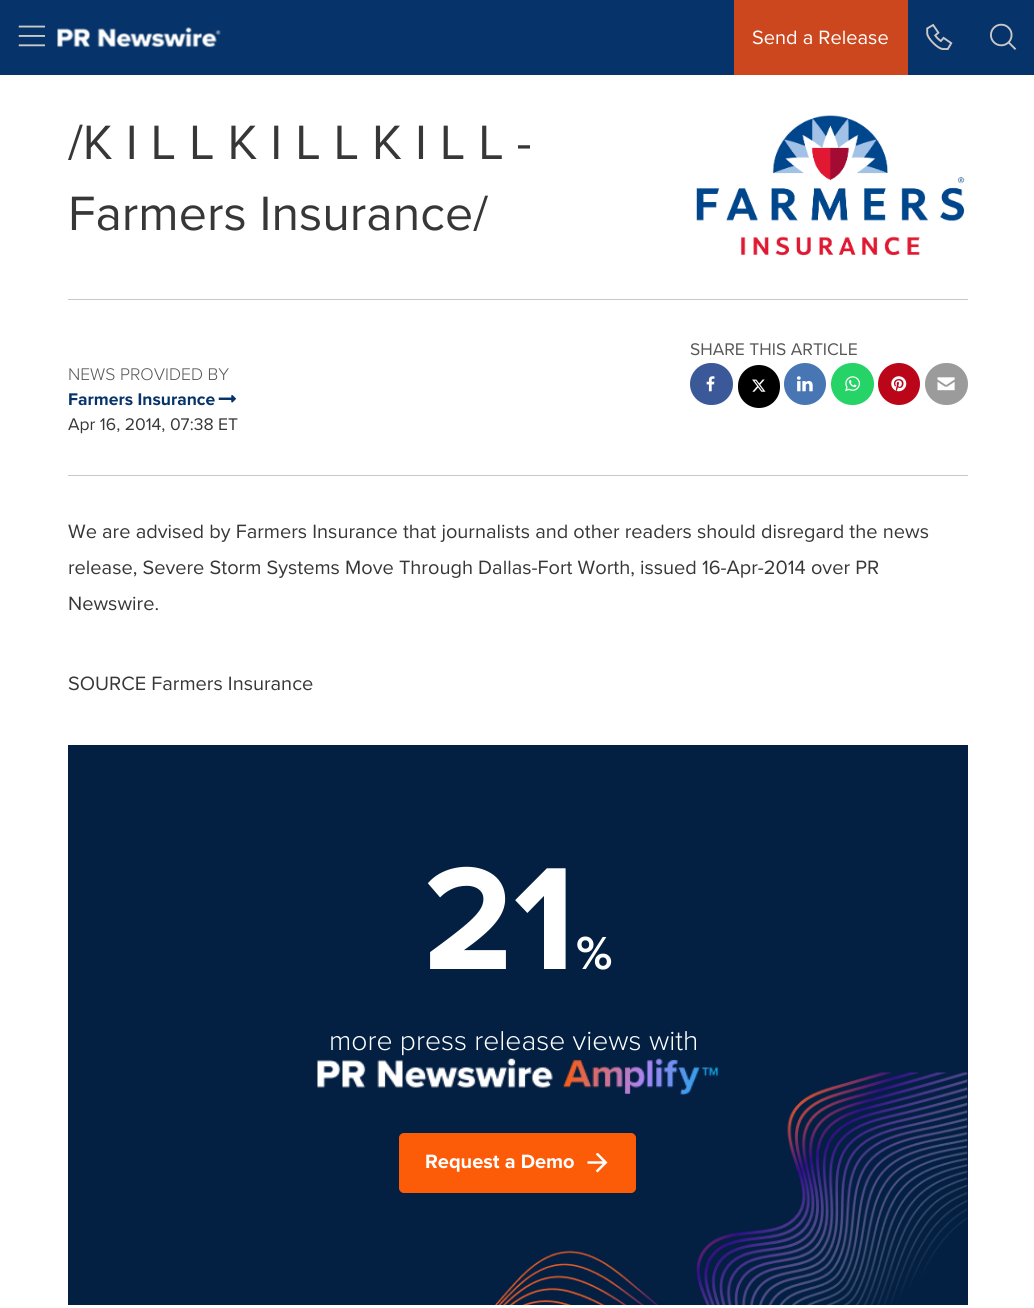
#include <cairo.h>
#include <math.h>
#include <stddef.h>

static cairo_t *c;
static void C(unsigned color){cairo_set_source_rgb(c, (color >> 16) / 255.0, (color >> 8 & 255) / 255.0, (color & 255) / 255.0);}
static void F(const char *family, double size, int italic, int bold){cairo_select_font_face(c, family, italic ? CAIRO_FONT_SLANT_ITALIC : CAIRO_FONT_SLANT_NORMAL,bold ? CAIRO_FONT_WEIGHT_BOLD : CAIRO_FONT_WEIGHT_NORMAL);cairo_set_font_size(c, size);}
static void T(double x, double y, const char *s){cairo_move_to(c, x, y);cairo_show_text(c, s);}
static void R(double x, double y, double w, double h){cairo_rectangle(c, x, y, w, h);cairo_fill(c);}
static void Q(double x, double y, double w, double h, double r){cairo_new_sub_path(c);cairo_arc(c, x + w - r, y + h - r, r, 0, M_PI / 2);cairo_arc(c, x + r, y + h - r, r, M_PI / 2, M_PI);cairo_arc(c, x + r, y + r, r, M_PI, 1.5 * M_PI);cairo_arc(c, x + w - r, y + r, r, 1.5 * M_PI, 2 * M_PI);cairo_close_path(c);}
static void I(const char *path, double x, double y, double w, double h){cairo_surface_t *image = cairo_image_surface_create_from_png(path);cairo_save(c);cairo_set_source_surface(c, image, x, y);cairo_rectangle(c, x, y, w, h);cairo_fill(c);cairo_restore(c);cairo_surface_destroy(image);}
int main(void) {
cairo_surface_t *surface = cairo_image_surface_create(CAIRO_FORMAT_RGB24, 1034, 1308);
c = cairo_create(surface);
cairo_font_options_t *options = cairo_font_options_create();
cairo_font_options_set_hint_metrics(options, CAIRO_HINT_METRICS_OFF);
cairo_font_options_set_hint_style(options, CAIRO_HINT_STYLE_NONE);
cairo_set_font_options(c, options);
cairo_set_miter_limit(c, 4);
C(0xffffff);
cairo_paint(c);
C(0x063369);
R(0,0,1034,75);
I("1.png",18,25,27,22);
I("2.png",57,27,164,21);
C(0xcc471e);
R(734,0,174,75);
F("Proxima Nova",20,0,0);
C(0xffffff);
T(752,44,"Send a Release");
I("3.png",926,23,27,27);
I("4.png",990,23,27,27);
F("Proxima Nova",50,0,0);
C(0x373737);
T(68,159,"/K I L L K I L L K I L L -");
T(68,230,"Farmers Insurance/");
I("5.png",696,115,269,141);
C(0xcac8c8);
R(68,299,900,1);
F("Proxima Nova",17.5,0,0);
C(0x575757);
T(690,355,"SHARE THIS ARTICLE");
C(0x3b5999);
Q(690,363,43,42,21);
cairo_fill(c);
I("6.png",706,376,9,16);
C(0x000000);
Q(738,365,42,43,21);
cairo_fill(c);
I("7.png",752,379,14,13);
C(0x4875b4);
cairo_arc(c,805,384,21,0,2 * M_PI);
cairo_fill(c);
I("8.png",797,376,16,16);
C(0x25d366);
Q(831,363,43,42,21);
cairo_fill(c);
I("9.png",845,376,15,16);
C(0xbb061a);
cairo_arc(c,899,384,21,0,2 * M_PI);
cairo_fill(c);
I("10.png",891,376,16,16);
C(0x9b9b9b);
Q(925,363,43,42,21);
cairo_fill(c);
I("11.png",937,377,18,14);
F("Proxima Nova Light",17.5,0,0);
C(0x575757);
T(68,380,"NEWS PROVIDED BY");
F("Proxima Nova",17.5,0,1);
C(0x063369);
T(68,405,"Farmers Insurance");
I("12.png",218,395,19,8);
F("Proxima Nova",17.5,0,0);
C(0x373737);
T(68,430,"Apr 16, 2014, 07:38 ET");
C(0xcac8c8);
R(68,475,900,1);
F("Proxima Nova",20,0,0);
C(0x373737);
T(68,538,"We are advised by Farmers Insurance that journalists and other readers should disregard the news");
T(68,574,"release, Severe Storm Systems Move Through Dallas-Fort Worth, issued 16-Apr-2014 over PR");
T(68,610,"Newswire.");
T(68,690,"SOURCE Farmers Insurance");
C(0x031f41);
R(68,745,900,560);
F("Proxima Nova",151,0,1);
C(0xffffff);
T(423,969,"21");
F("Proxima Nova",48,0,1);
T(576,969,"%");
F("Proxima Nova Light",28.3,0,0);
T(329,1050,"more press release views with");
I("14.png",430,1072,538,233);
I("13.png",317,1058,402,37);
C(0xfc5b08);
Q(399.5,1133.5,236,59,4.5);
cairo_fill_preserve(c);
cairo_set_line_width(c,1);
cairo_stroke(c);
F("Proxima Nova",20,0,1);
C(0xffffff);
T(425,1168,"Request a Demo");
I("15.png",587,1153,21,20);
cairo_surface_write_to_png(surface, "o.png");
cairo_font_options_destroy(options);
cairo_destroy(c);
cairo_surface_destroy(surface);
return 0;
}
